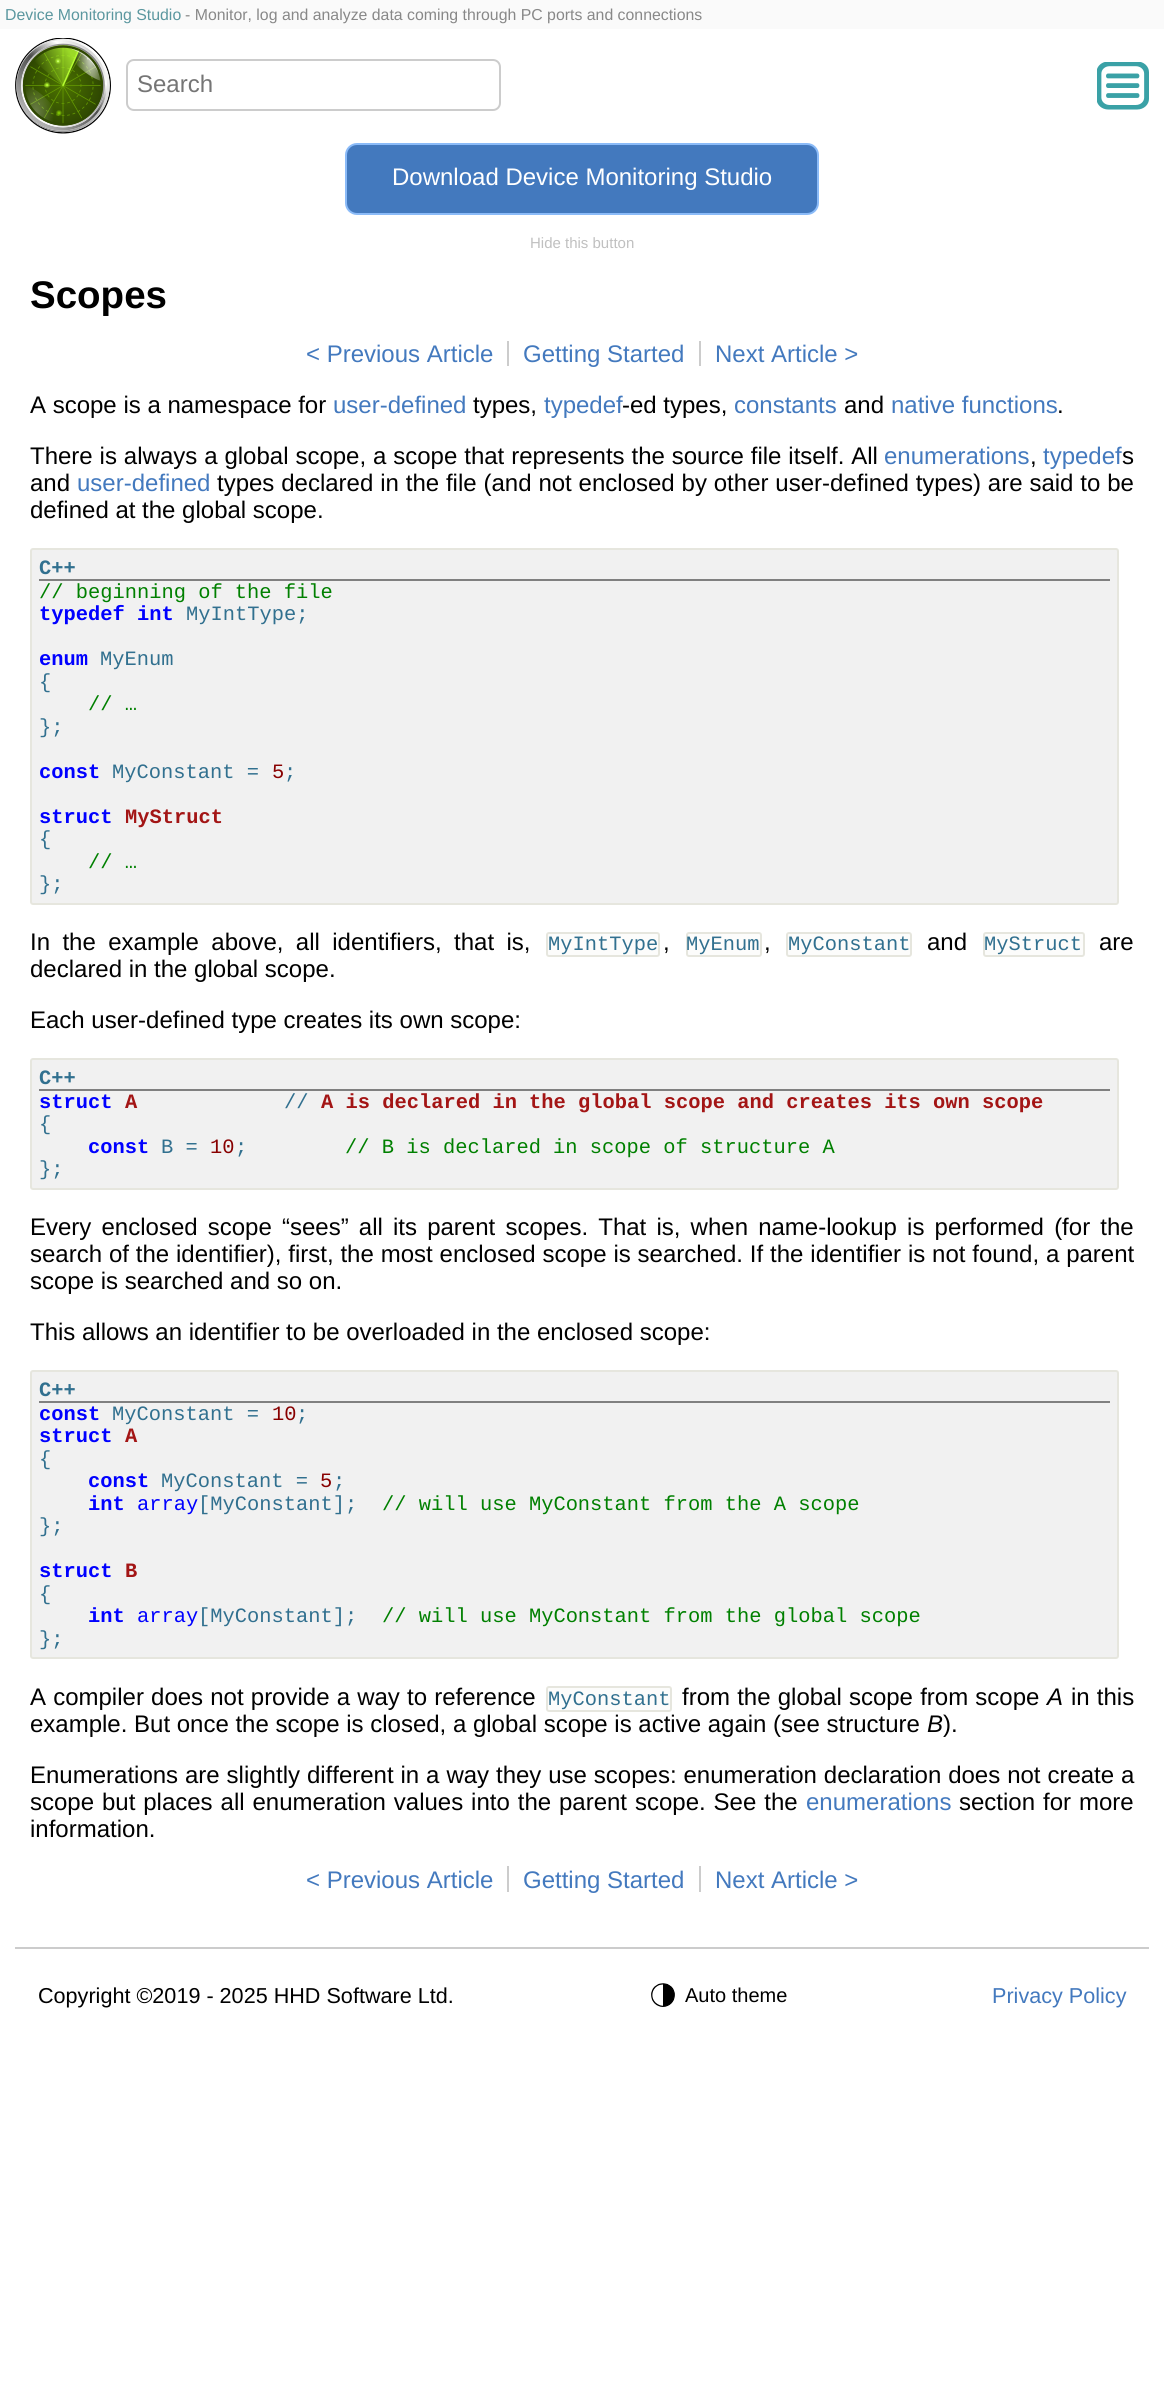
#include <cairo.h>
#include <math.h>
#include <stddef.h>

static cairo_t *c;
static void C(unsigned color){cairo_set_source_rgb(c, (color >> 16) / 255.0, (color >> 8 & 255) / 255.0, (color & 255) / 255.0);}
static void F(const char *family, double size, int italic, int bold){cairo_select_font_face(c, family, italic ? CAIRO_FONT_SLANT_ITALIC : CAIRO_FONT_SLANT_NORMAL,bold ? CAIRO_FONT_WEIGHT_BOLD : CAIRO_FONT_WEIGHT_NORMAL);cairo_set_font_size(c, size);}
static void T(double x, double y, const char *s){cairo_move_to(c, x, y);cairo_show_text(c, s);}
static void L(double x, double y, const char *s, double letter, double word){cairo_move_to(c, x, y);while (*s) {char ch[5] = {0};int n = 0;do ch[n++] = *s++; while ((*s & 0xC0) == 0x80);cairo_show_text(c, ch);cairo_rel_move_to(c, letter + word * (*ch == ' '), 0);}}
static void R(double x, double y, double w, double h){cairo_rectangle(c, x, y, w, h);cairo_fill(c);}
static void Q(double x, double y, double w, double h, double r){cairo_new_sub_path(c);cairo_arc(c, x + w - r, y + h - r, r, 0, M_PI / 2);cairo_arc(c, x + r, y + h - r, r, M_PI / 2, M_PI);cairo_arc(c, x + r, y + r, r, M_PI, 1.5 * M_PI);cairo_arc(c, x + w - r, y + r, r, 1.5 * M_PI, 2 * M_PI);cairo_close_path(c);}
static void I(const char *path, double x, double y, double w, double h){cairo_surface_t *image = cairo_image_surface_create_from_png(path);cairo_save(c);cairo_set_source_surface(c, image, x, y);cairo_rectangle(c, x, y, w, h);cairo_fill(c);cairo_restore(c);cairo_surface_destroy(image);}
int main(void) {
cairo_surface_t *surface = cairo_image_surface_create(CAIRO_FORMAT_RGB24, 1164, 2400);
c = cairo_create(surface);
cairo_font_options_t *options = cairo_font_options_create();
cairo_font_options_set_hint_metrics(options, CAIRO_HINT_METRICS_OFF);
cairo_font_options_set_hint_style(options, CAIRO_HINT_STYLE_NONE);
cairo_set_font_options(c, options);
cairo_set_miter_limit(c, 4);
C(0xffffff);
cairo_paint(c);
C(0xfafafa);
R(0,0,1164,29);
F("Liberation Sans",15.85,0,0);
C(0x5b979f);
T(5,20,"Device Monitoring Studio");
C(0x888888);
T(185,20,"- Monitor, log and analyze data coming through PC ports and connections");
I("1.png",15,38,96,96);
Q(127,60,373,50,7);
C(0xcccccc);
cairo_stroke(c);
F("Liberation Sans",24,0,0);
C(0x757575);
T(137,92,"Search");
I("2.png",1097,62,52,48);
C(0x4379be);
Q(346,144,472,70,11);
cairo_fill_preserve(c);
C(0x8bbbf8);
cairo_stroke(c);
C(0xffffff);
T(392,185,"Download Device Monitoring Studio");
F("Liberation Sans",15,0,0);
C(0xc0c0c0);
T(530,248,"Hide this button");
F("Liberation Sans",38.5,0,1);
C(0x000000);
T(30,308,"Scopes");
F("Liberation Sans",24,0,0);
C(0x4379be);
T(306,362,"< Previous Article");
C(0xcccccc);
R(507,341,2,25);
C(0x4379be);
T(523,362,"Getting Started");
T(715,362,"Next Article >");
C(0xcccccc);
R(699,341,2,25);
C(0x000000);
T(30,413,"A scope is a namespace for");
C(0x4379be);
T(333,413,"user-defined");
C(0x000000);
T(473,413,"types,");
C(0x4379be);
T(544,413,"typedef");
C(0x000000);
T(622,413,"-ed types,");
C(0x4379be);
T(734,413,"constants");
C(0x000000);
T(844,413,"and");
C(0x4379be);
T(891,413,"native functions");
C(0x000000);
T(1057,413,".");
L(30,464,"There is always a global scope, a scope that represents the source file itself. All",0,.25);
C(0x4379be);
T(884,464,"enumerations");
C(0x000000);
T(1030,464,",");
C(0x4379be);
T(1043,464,"typedef");
C(0x000000);
T(1122,464,"s");
T(30,491,"and");
C(0x4379be);
T(77,491,"user-defined");
C(0x000000);
L(217,491,"types declared in the file (and not enclosed by other user-defined types) are said to be",0,.2);
T(30,518,"defined at the global scope.");
C(0xf1f1f1);
Q(31,549,1087,355,2);
cairo_fill_preserve(c);
C(0xe6e6de);
cairo_stroke(c);
C(0x808080);
R(39,579,1071,2);
F("Liberation Mono",20.4,0,1);
C(0x31708f);
T(39,574,"C++");
F("Liberation Mono",20.4,0,0);
C(0x008000);
T(39,598,"// beginning of the file");
F("Liberation Mono",20.4,0,1);
C(0x0000ff);
T(39,620,"typedef int");
F("Liberation Mono",20.4,0,0);
C(0x31708f);
T(186,620,"MyIntType;");
F("Liberation Mono",20.4,0,1);
C(0x0000ff);
T(39,665,"enum");
F("Liberation Mono",20.4,0,0);
C(0x31708f);
T(100,665,"MyEnum");
T(39,688,"{");
C(0x008000);
T(88,710,"// …");
C(0x31708f);
T(39,733,"};");
F("Liberation Mono",20.4,0,1);
C(0x0000ff);
T(39,778,"const");
F("Liberation Mono",20.4,0,0);
C(0x31708f);
T(112,778,"MyConstant =");
C(0x880000);
T(272,778,"5");
C(0x31708f);
T(284,778,";");
F("Liberation Mono",20.4,0,1);
C(0x0000ff);
T(39,823,"struct");
C(0xa31515);
T(125,823,"MyStruct");
F("Liberation Mono",20.4,0,0);
C(0x31708f);
T(39,845,"{");
C(0x008000);
T(88,868,"// …");
C(0x31708f);
T(39,890,"};");
F("Liberation Sans",24,0,0);
C(0x000000);
L(30,950,"In the example above, all identifiers, that is,",0,5.75);
C(0xfcfcfb);
Q(547,933,112,23,2);
cairo_fill_preserve(c);
C(0xe6e6de);
cairo_stroke(c);
F("Liberation Mono",20.4,0,0);
C(0x31708f);
T(548,950,"MyIntType");
F("Liberation Sans",24,0,0);
C(0x000000);
T(663,950,",");
C(0xfcfcfb);
Q(687,933,74,23,2);
cairo_fill_preserve(c);
C(0xe6e6de);
cairo_stroke(c);
F("Liberation Mono",20.4,0,0);
C(0x31708f);
T(686,950,"MyEnum");
F("Liberation Sans",24,0,0);
C(0x000000);
T(764,950,",");
C(0xfcfcfb);
Q(787,933,124,23,2);
cairo_fill_preserve(c);
C(0xe6e6de);
cairo_stroke(c);
F("Liberation Mono",20.4,0,0);
C(0x31708f);
T(788,950,"MyConstant");
F("Liberation Sans",24,0,0);
C(0x000000);
T(927,950,"and");
C(0xfcfcfb);
Q(984,933,100,23,2);
cairo_fill_preserve(c);
C(0xe6e6de);
cairo_stroke(c);
F("Liberation Mono",20.4,0,0);
C(0x31708f);
T(984,950,"MyStruct");
F("Liberation Sans",24,0,0);
C(0x000000);
T(1099,950,"are");
T(30,977,"declared in the global scope.");
T(30,1028,"Each user-defined type creates its own scope:");
C(0xf1f1f1);
Q(31,1059,1087,130,2);
cairo_fill_preserve(c);
C(0xe6e6de);
cairo_stroke(c);
C(0x808080);
R(39,1089,1071,2);
F("Liberation Mono",20.4,0,1);
C(0x31708f);
T(39,1084,"C++");
C(0x0000ff);
T(39,1108,"struct");
C(0xa31515);
T(125,1108,"A");
F("Liberation Mono",20.4,0,0);
C(0x31708f);
T(284,1108,"//");
F("Liberation Mono",20.4,0,1);
C(0xa31515);
T(321,1108,"A is declared in the global scope and creates its own scope");
F("Liberation Mono",20.4,0,0);
C(0x31708f);
T(39,1130,"{");
F("Liberation Mono",20.4,0,1);
C(0x0000ff);
T(88,1153,"const");
F("Liberation Mono",20.4,0,0);
C(0x31708f);
T(161,1153,"B =");
C(0x880000);
T(210,1153,"10");
C(0x31708f);
T(235,1153,";");
C(0x008000);
T(345,1153,"// B is declared in scope of structure A");
C(0x31708f);
T(39,1175,"};");
F("Liberation Sans",24,0,0);
C(0x000000);
L(30,1235,"Every enclosed scope “sees” all its parent scopes. That is, when name-lookup is performed (for the",0,3.5);
L(30,1262,"search of the identifier), first, the most enclosed scope is searched. If the identifier is not found, a parent",0,.2);
T(30,1289,"scope is searched and so on.");
T(30,1340,"This allows an identifier to be overloaded in the enclosed scope:");
C(0xf1f1f1);
Q(31,1371,1087,287,2);
cairo_fill_preserve(c);
C(0xe6e6de);
cairo_stroke(c);
C(0x808080);
R(39,1401,1071,2);
F("Liberation Mono",20.4,0,1);
C(0x31708f);
T(39,1396,"C++");
C(0x0000ff);
T(39,1420,"const");
F("Liberation Mono",20.4,0,0);
C(0x31708f);
T(112,1420,"MyConstant =");
C(0x880000);
T(272,1420,"10");
C(0x31708f);
T(296,1420,";");
F("Liberation Mono",20.4,0,1);
C(0x0000ff);
T(39,1442,"struct");
C(0xa31515);
T(125,1442,"A");
F("Liberation Mono",20.4,0,0);
C(0x31708f);
T(39,1465,"{");
F("Liberation Mono",20.4,0,1);
C(0x0000ff);
T(88,1487,"const");
F("Liberation Mono",20.4,0,0);
C(0x31708f);
T(161,1487,"MyConstant =");
C(0x880000);
T(320,1487,"5");
C(0x31708f);
T(333,1487,";");
F("Liberation Mono",20.4,0,1);
C(0x0000ff);
T(88,1510,"int");
F("Liberation Mono",20.4,0,0);
T(137,1510,"array");
C(0x31708f);
T(198,1510,"[MyConstant];");
C(0x008000);
T(382,1510,"// will use MyConstant from the A scope");
C(0x31708f);
T(39,1532,"};");
F("Liberation Mono",20.4,0,1);
C(0x0000ff);
T(39,1577,"struct");
C(0xa31515);
T(125,1577,"B");
F("Liberation Mono",20.4,0,0);
C(0x31708f);
T(39,1600,"{");
F("Liberation Mono",20.4,0,1);
C(0x0000ff);
T(88,1622,"int");
F("Liberation Mono",20.4,0,0);
T(137,1622,"array");
C(0x31708f);
T(198,1622,"[MyConstant];");
C(0x008000);
T(382,1622,"// will use MyConstant from the global scope");
C(0x31708f);
T(39,1645,"};");
F("Liberation Sans",24,0,0);
C(0x000000);
L(30,1705,"A compiler does not provide a way to reference",0,.5);
C(0xfcfcfb);
Q(547,1687,124,24,2);
cairo_fill_preserve(c);
C(0xe6e6de);
cairo_stroke(c);
F("Liberation Mono",20.4,0,0);
C(0x31708f);
T(548,1705,"MyConstant");
F("Liberation Sans",24,0,0);
C(0x000000);
L(682,1705,"from the global scope from scope",0,.5);
F("Liberation Sans",24,1,0);
T(1047,1705,"A");
F("Liberation Sans",24,0,0);
L(1071,1705,"in this",0,.5);
T(30,1732,"example. But once the scope is closed, a global scope is active again (see structure");
F("Liberation Sans",24,1,0);
T(927,1732,"B");
F("Liberation Sans",24,0,0);
T(943,1732,").");
L(30,1783,"Enumerations are slightly different in a way they use scopes: enumeration declaration does not create a",0,.25);
L(30,1810,"scope but places all enumeration values into the parent scope. See the",0,1.25);
C(0x4379be);
T(806,1810,"enumerations");
C(0x000000);
L(959,1810,"section for more",0,1.25);
T(30,1837,"information.");
C(0x4379be);
T(306,1888,"< Previous Article");
C(0xcccccc);
R(507,1866,2,26);
C(0x4379be);
T(523,1888,"Getting Started");
T(715,1888,"Next Article >");
C(0xcccccc);
R(699,1866,2,26);
R(15,1947,1134,2);
F("Liberation Sans",21.6,0,0);
C(0x000000);
T(38,2003,"Copyright ©2019 - 2025 HHD Software Ltd.");
I("3.png",651,1983,24,24);
F("Liberation Sans",20,0,0);
T(685,2002,"Auto theme");
F("Liberation Sans",21.6,0,0);
C(0x4379be);
T(992,2003,"Privacy Policy");
cairo_surface_write_to_png(surface, "o.png");
cairo_font_options_destroy(options);
cairo_destroy(c);
cairo_surface_destroy(surface);
return 0;
}
